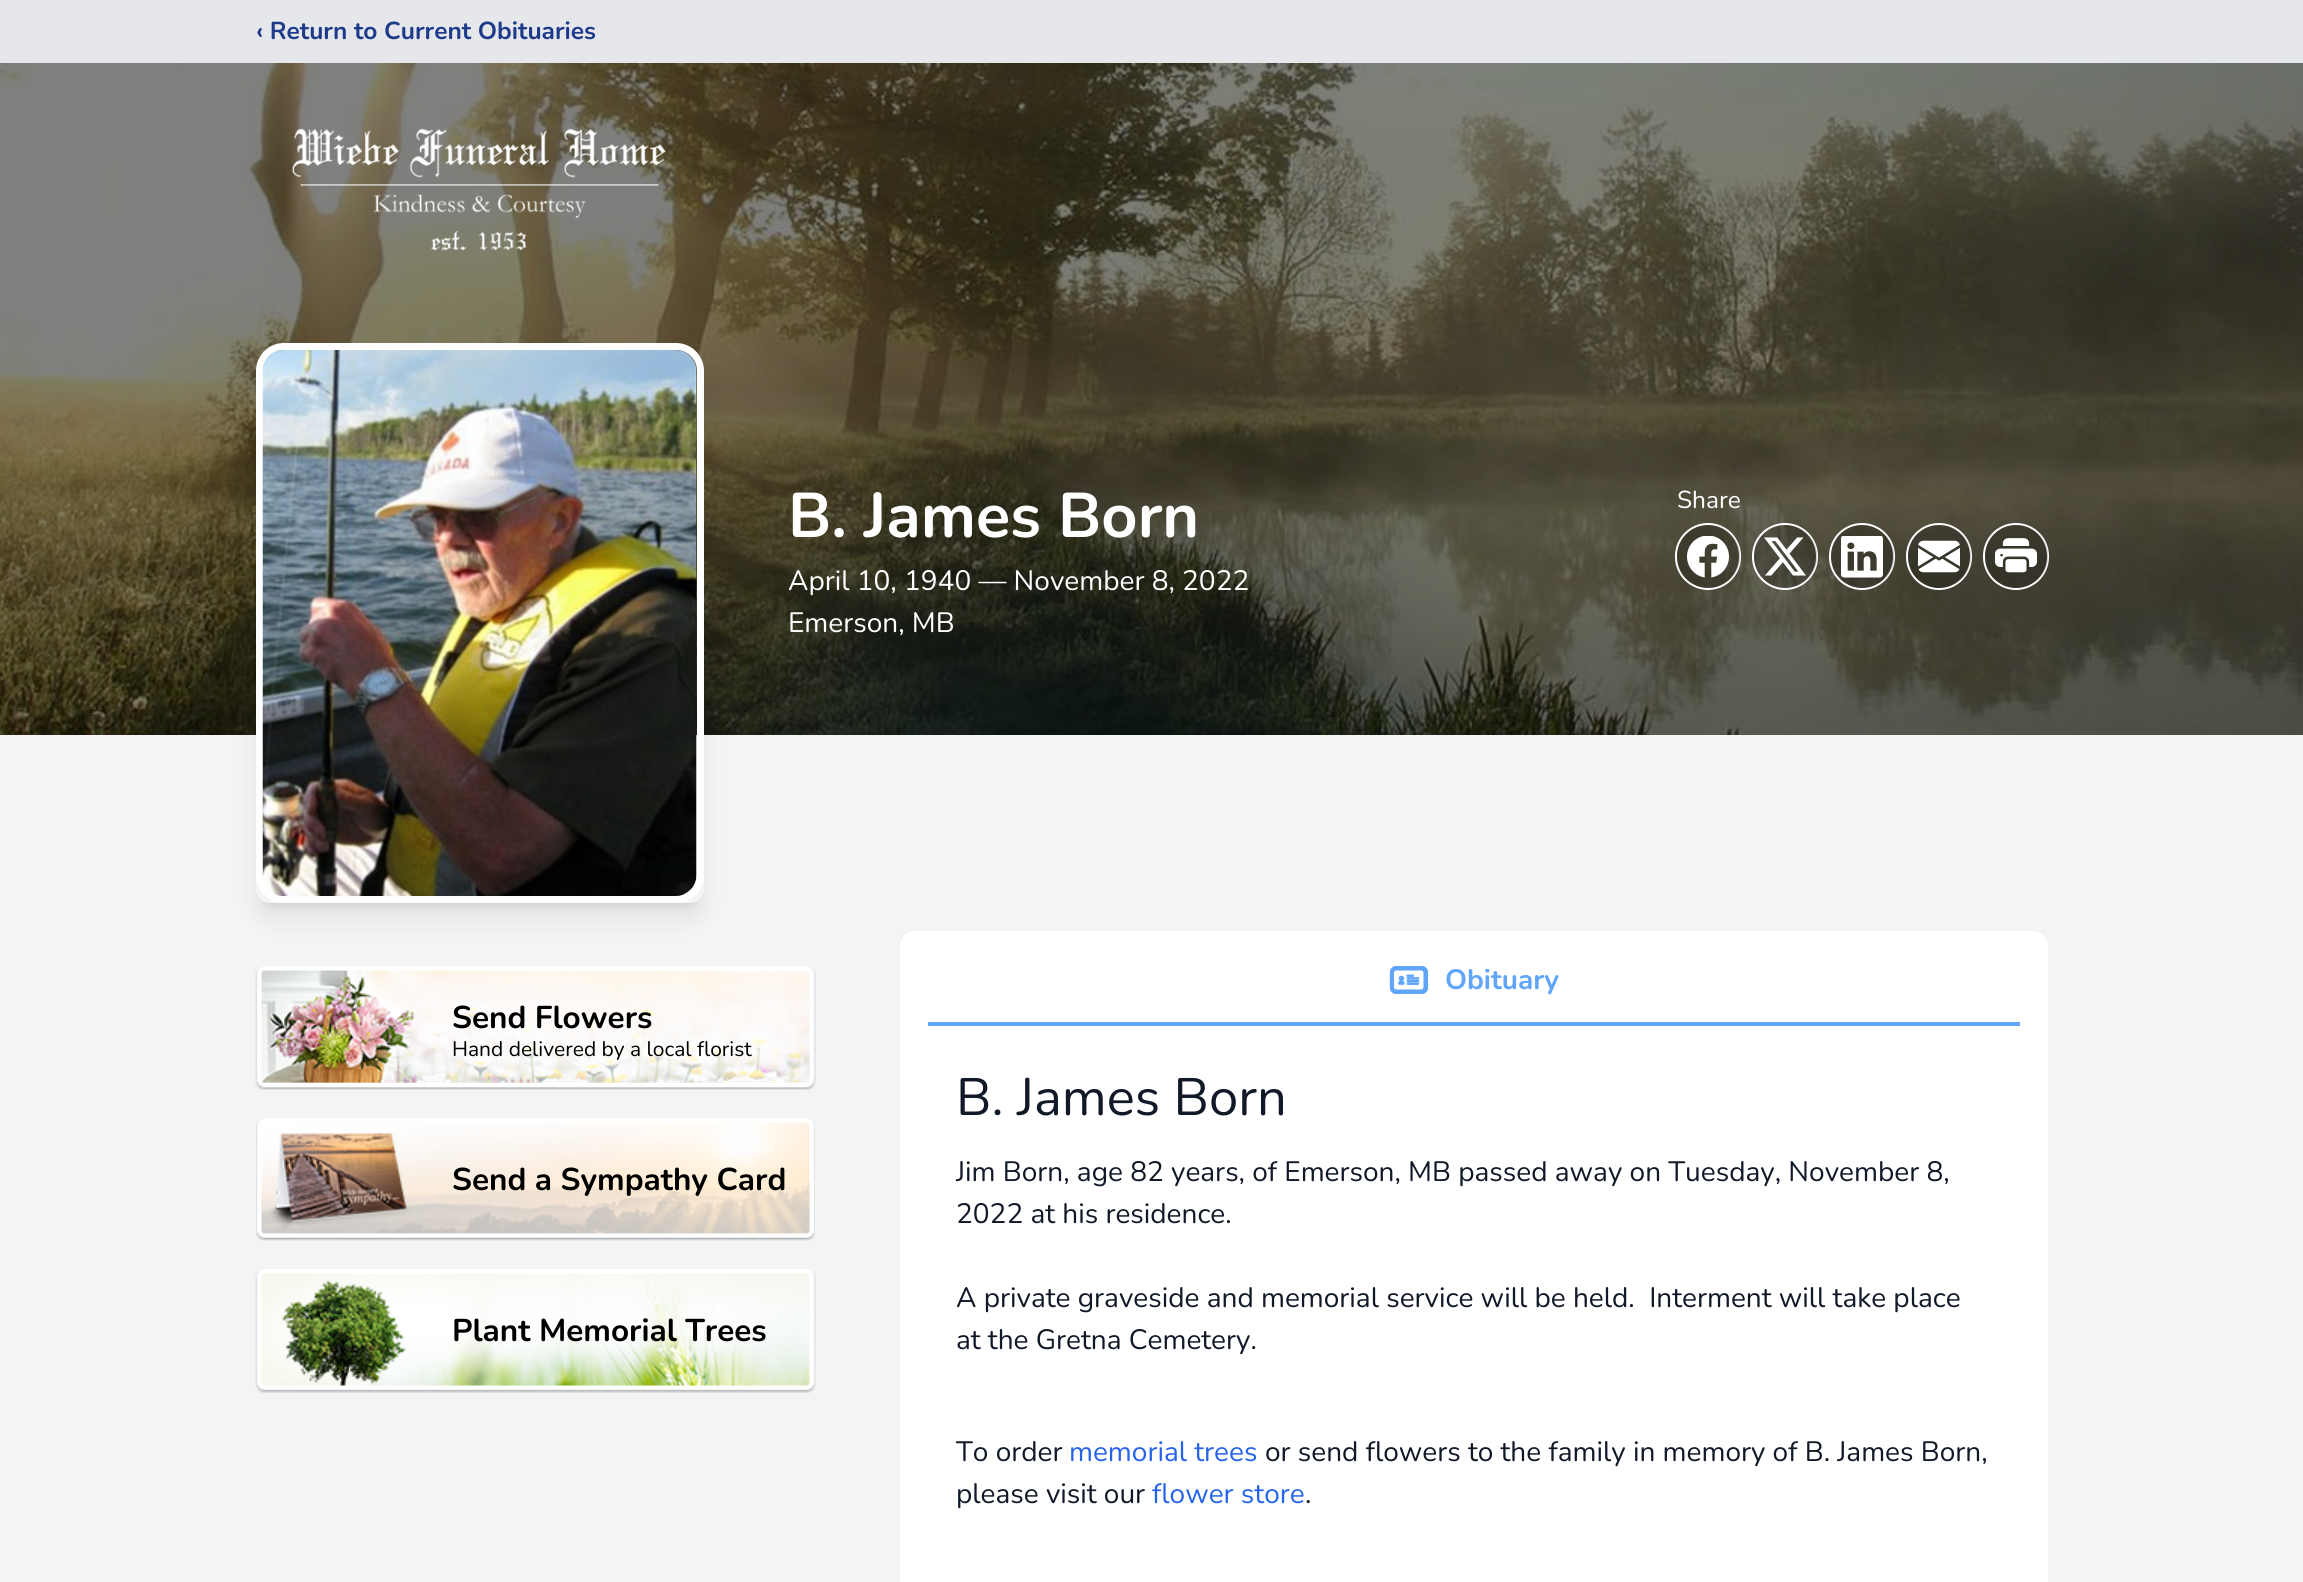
#include <cairo.h>
#include <math.h>
#include <stddef.h>

static cairo_t *c;
static void C(unsigned color){cairo_set_source_rgb(c, (color >> 16) / 255.0, (color >> 8 & 255) / 255.0, (color & 255) / 255.0);}
static void F(const char *family, double size, int italic, int bold){cairo_select_font_face(c, family, italic ? CAIRO_FONT_SLANT_ITALIC : CAIRO_FONT_SLANT_NORMAL,bold ? CAIRO_FONT_WEIGHT_BOLD : CAIRO_FONT_WEIGHT_NORMAL);cairo_set_font_size(c, size);}
static void T(double x, double y, const char *s){cairo_move_to(c, x, y);cairo_show_text(c, s);}
static void R(double x, double y, double w, double h){cairo_rectangle(c, x, y, w, h);cairo_fill(c);}
static void Q(double x, double y, double w, double h, double r){cairo_new_sub_path(c);cairo_arc(c, x + w - r, y + h - r, r, 0, M_PI / 2);cairo_arc(c, x + r, y + h - r, r, M_PI / 2, M_PI);cairo_arc(c, x + r, y + r, r, M_PI, 1.5 * M_PI);cairo_arc(c, x + w - r, y + r, r, 1.5 * M_PI, 2 * M_PI);cairo_close_path(c);}
static void S(double x, double y, double w, double h, double r, double blur, double alpha){cairo_push_group_with_content(c, CAIRO_CONTENT_ALPHA);cairo_set_operator(c, CAIRO_OPERATOR_SOURCE);for (int i = 15; i >= -15 && fmin(w, h) + blur * i / 3 > 0; i -= 2) {double e = blur * i / 6;cairo_set_source_rgba(c, 0, 0, 0, alpha * erfc((i - 1) / 8.5) / 2);Q(x - e, y - e, w + 2 * e, h + 2 * e, fmax(0, fmin(r + e + blur * .6, fmin(w, h) / 2 + e)));cairo_fill(c);}cairo_pattern_t *soft = cairo_pop_group(c);cairo_mask(c, soft);cairo_pattern_destroy(soft);}
static void I(const char *path, double x, double y, double w, double h){cairo_surface_t *image = cairo_image_surface_create_from_png(path);cairo_save(c);cairo_set_source_surface(c, image, x, y);cairo_rectangle(c, x, y, w, h);cairo_fill(c);cairo_restore(c);cairo_surface_destroy(image);}
int main(void) {
cairo_surface_t *surface = cairo_image_surface_create(CAIRO_FORMAT_RGB24, 2303, 1582);
c = cairo_create(surface);
cairo_font_options_t *options = cairo_font_options_create();
cairo_font_options_set_hint_metrics(options, CAIRO_HINT_METRICS_OFF);
cairo_font_options_set_hint_style(options, CAIRO_HINT_STYLE_NONE);
cairo_set_font_options(c, options);
cairo_set_miter_limit(c, 4);
C(0xf3f4f6);
cairo_paint(c);
C(0xe5e7eb);
R(0,0,2303,63);
F("Nunito",24.5,0,1);
C(0x1e3a8a);
T(256,39,"‹ Return to Current Obituaries");
I("1.png",0,63,2303,672);
I("2.png",292,128,374,123);
cairo_save(c);
cairo_set_fill_rule(c,CAIRO_FILL_RULE_EVEN_ODD);
cairo_new_path(c);
cairo_move_to(c,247,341);
cairo_line_to(c,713,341);
cairo_line_to(c,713,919);
cairo_line_to(c,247,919);
cairo_close_path(c);
cairo_move_to(c,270,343);
cairo_line_to(c,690,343);
cairo_curve_to(c,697.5,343,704,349.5,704,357);
cairo_line_to(c,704,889);
cairo_curve_to(c,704,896.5,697.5,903,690,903);
cairo_line_to(c,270,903);
cairo_curve_to(c,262.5,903,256,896.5,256,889);
cairo_line_to(c,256,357);
cairo_curve_to(c,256,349.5,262.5,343,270,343);
cairo_close_path(c);
cairo_clip(c);
C(0x000000);
S(263,357,434,546,7,5,.1);
cairo_restore(c);
cairo_save(c);
cairo_set_fill_rule(c,CAIRO_FILL_RULE_EVEN_ODD);
cairo_new_path(c);
cairo_move_to(c,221,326);
cairo_line_to(c,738,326);
cairo_line_to(c,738,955);
cairo_line_to(c,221,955);
cairo_close_path(c);
cairo_move_to(c,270,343);
cairo_line_to(c,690,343);
cairo_curve_to(c,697.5,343,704,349.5,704,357);
cairo_line_to(c,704,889);
cairo_curve_to(c,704,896.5,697.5,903,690,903);
cairo_line_to(c,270,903);
cairo_curve_to(c,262.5,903,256,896.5,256,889);
cairo_line_to(c,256,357);
cairo_curve_to(c,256,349.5,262.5,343,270,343);
cairo_close_path(c);
cairo_clip(c);
C(0x000000);
S(261,366,437,549,9,13,.1);
cairo_restore(c);
Q(259.5,346.5,441,553,24.5);
C(0xffffff);
cairo_set_line_width(c,7);
cairo_stroke(c);
I("3.png",262,350,435,546);
F("Nunito",63,0,1);
T(788,537,"B. James Born");
F("Nunito",28,0,0);
T(788,590,"April 10, 1940 — November 8, 2022");
T(788,632,"Emerson, MB");
F("Nunito",24.5,0,0);
T(1677,508,"Share");
Q(1676,524,64,65,32);
cairo_set_line_width(c,2);
cairo_stroke(c);
cairo_set_source_rgba(c,0,0,0,0.2);
cairo_arc(c,1708.5,556.5,31.5,0,2 * M_PI);
cairo_fill(c);
I("4.png",1687,536,42,42);
Q(1753,524,64,65,32);
C(0xffffff);
cairo_stroke(c);
cairo_set_source_rgba(c,0,0,0,0.2);
cairo_arc(c,1785.5,556.5,31.5,0,2 * M_PI);
cairo_fill(c);
I("5.png",1764,537,42,39);
Q(1830,524,64,65,32);
C(0xffffff);
cairo_stroke(c);
cairo_set_source_rgba(c,0,0,0,0.2);
cairo_arc(c,1862.5,556.5,31.5,0,2 * M_PI);
cairo_fill(c);
I("6.png",1841,536,42,42);
Q(1907,524,64,65,32);
C(0xffffff);
cairo_stroke(c);
cairo_set_source_rgba(c,0,0,0,0.2);
cairo_arc(c,1939.5,556.5,31.5,0,2 * M_PI);
cairo_fill(c);
I("7.png",1918,540,42,33);
Q(1984,524,64,65,32);
C(0xffffff);
cairo_stroke(c);
cairo_set_source_rgba(c,0,0,0,0.2);
cairo_arc(c,2016.5,556.5,31.5,0,2 * M_PI);
cairo_fill(c);
I("8.png",1995,538,42,35);
I("9.png",255,966,561,124);
F("Nunito",31.5,0,1);
C(0x000000);
T(452,1028,"Send Flowers");
F("Nunito",21,0,0);
T(452,1056,"Hand delivered by a local florist");
I("10.png",256,1118,559,123);
F("Nunito",31.5,0,1);
T(452,1190,"Send a Sympathy Card");
I("11.png",255,1269,561,124);
T(452,1341,"Plant Memorial Trees");
cairo_save(c);
cairo_rectangle(c,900,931,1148,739);
cairo_clip(c);
C(0x000000);
S(900,933,1148,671,14,2.5,.1);
cairo_restore(c);
C(0xffffff);
Q(900,931,1148,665,14);
cairo_fill(c);
C(0x60a5fa);
R(928,1022,1092,4);
I("12.png",1389,966,39,28);
F("Nunito",28,0,1);
T(1445,989,"Obituary");
F("Nunito",52.5,0,0);
C(0x111827);
T(956,1115,"B. James Born");
F("Nunito",28,0,0);
T(956,1181,"Jim Born, age 82 years, of Emerson, MB passed away on Tuesday, November 8,");
T(956,1223,"2022 at his residence.");
T(956,1307,"A private graveside and memorial service will be held.  Interment will take place");
T(956,1349,"at the Gretna Cemetery.");
T(956,1461,"To order");
C(0x2563eb);
T(1069,1461,"memorial trees");
C(0x111827);
T(1265,1461,"or send flowers to the family in memory of B. James Born,");
T(956,1503,"please visit our");
C(0x2563eb);
T(1152,1503,"flower store");
C(0x111827);
T(1305,1503,".");
cairo_surface_write_to_png(surface, "o.png");
cairo_font_options_destroy(options);
cairo_destroy(c);
cairo_surface_destroy(surface);
return 0;
}
